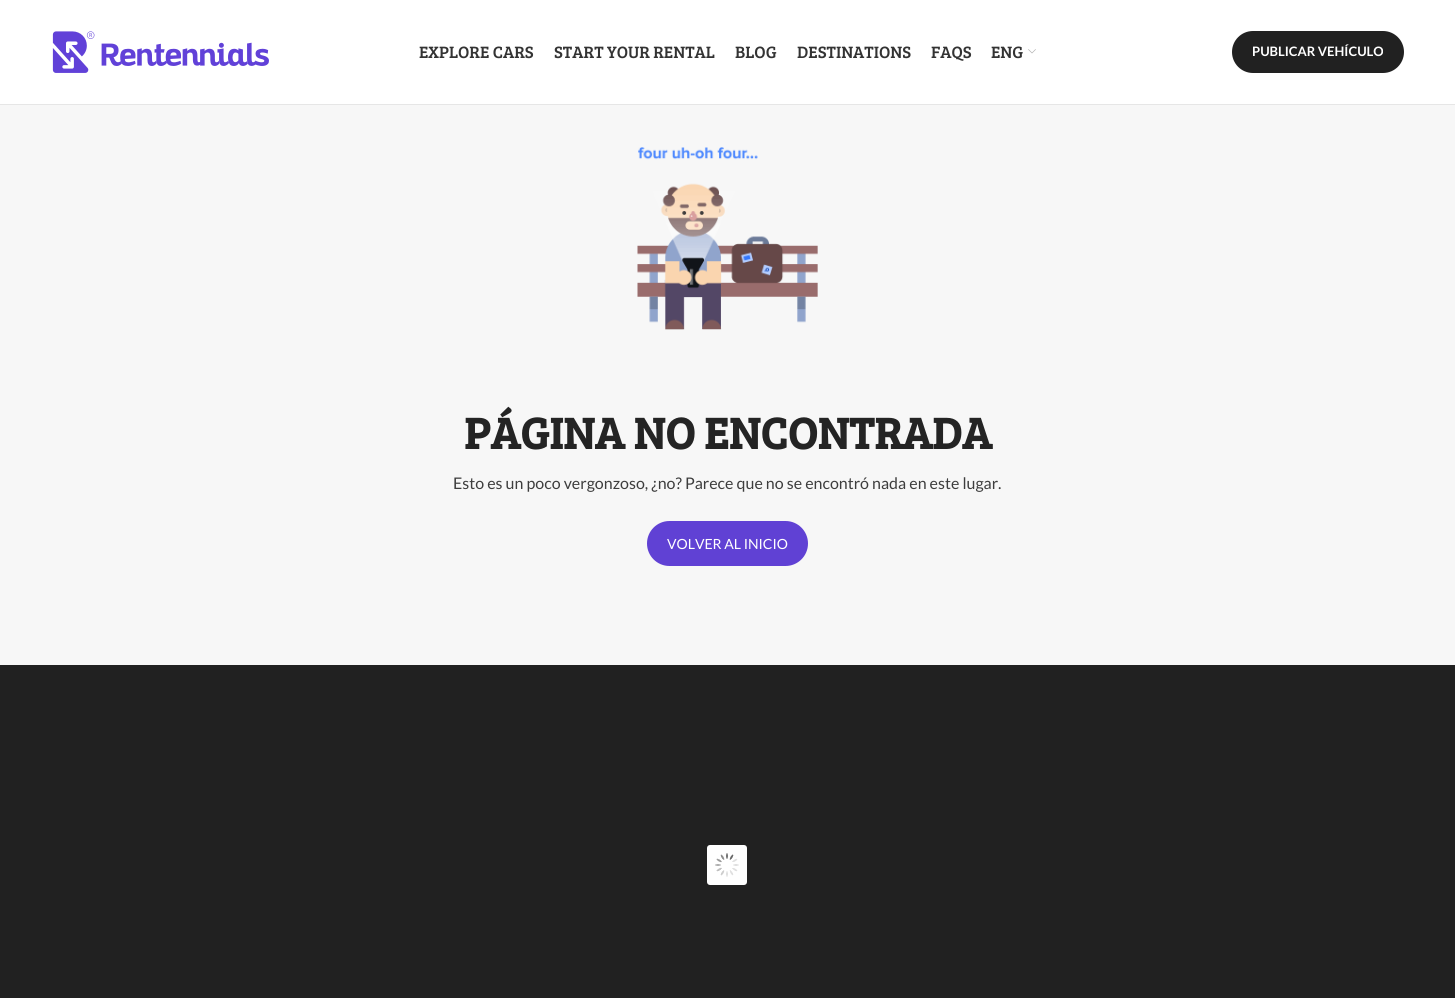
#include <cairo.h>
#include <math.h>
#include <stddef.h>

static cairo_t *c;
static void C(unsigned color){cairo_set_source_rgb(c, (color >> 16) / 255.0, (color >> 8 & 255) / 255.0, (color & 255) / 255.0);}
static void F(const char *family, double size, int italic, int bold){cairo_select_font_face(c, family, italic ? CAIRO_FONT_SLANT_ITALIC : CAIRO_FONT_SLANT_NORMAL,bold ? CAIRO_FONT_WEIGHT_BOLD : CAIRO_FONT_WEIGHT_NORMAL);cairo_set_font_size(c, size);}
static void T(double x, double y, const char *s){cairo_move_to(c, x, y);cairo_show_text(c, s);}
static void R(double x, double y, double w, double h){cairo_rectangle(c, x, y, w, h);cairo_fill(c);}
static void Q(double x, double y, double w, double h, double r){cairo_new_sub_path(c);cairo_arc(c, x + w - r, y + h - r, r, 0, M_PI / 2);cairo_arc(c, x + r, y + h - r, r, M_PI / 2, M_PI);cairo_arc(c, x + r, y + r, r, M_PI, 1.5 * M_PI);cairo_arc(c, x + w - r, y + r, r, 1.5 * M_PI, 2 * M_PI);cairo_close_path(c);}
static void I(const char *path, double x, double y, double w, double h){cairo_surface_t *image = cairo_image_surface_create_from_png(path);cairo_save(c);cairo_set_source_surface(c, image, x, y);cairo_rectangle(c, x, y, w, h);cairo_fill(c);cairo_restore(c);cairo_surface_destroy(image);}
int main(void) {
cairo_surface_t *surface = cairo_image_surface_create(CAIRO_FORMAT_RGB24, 1455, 998);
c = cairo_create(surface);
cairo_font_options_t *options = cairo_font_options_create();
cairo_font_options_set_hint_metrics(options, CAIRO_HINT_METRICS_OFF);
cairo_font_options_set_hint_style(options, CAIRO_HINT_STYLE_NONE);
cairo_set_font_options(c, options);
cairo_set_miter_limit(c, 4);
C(0xf7f7f7);
cairo_paint(c);
C(0xffffff);
R(0,0,1455,104);
C(0xe6e6e6);
R(0,104,1455,1);
I("1.png",52,31,217,42);
F("Bree Serif",17,0,0);
C(0x333333);
T(419,58,"EXPLORE CARS");
T(554,58,"START YOUR RENTAL");
T(735,58,"BLOG");
T(797,58,"DESTINATIONS");
T(931,58,"FAQS");
T(991,58,"ENG");
I("2.png",1028,49,8,5);
C(0x212121);
Q(1232,31,172,42,21);
cairo_fill(c);
F("Lato",13,0,1);
C(0xffffff);
T(1252,56,"PUBLICAR VEHÍCULO");
I("3.png",637,147,181,183);
F("Bree Serif",45,0,1);
C(0x242424);
T(464,449,"PÁGINA NO ENCONTRADA");
F("Lato",16,0,0);
C(0x3d3d3d);
T(453,489,"Esto es un poco vergonzoso, ¿no? Parece que no se encontró nada en este lugar.");
C(0x6041d4);
Q(647,521,161,45,22.5);
cairo_fill(c);
F("Lato",14,0,0);
C(0xffffff);
T(667,549,"VOLVER AL INICIO");
C(0x212121);
R(0,665,1455,333);
C(0xffffff);
Q(707,845,40,40,3);
cairo_fill(c);
I("4.png",715,853,24,24);
cairo_surface_write_to_png(surface, "o.png");
cairo_font_options_destroy(options);
cairo_destroy(c);
cairo_surface_destroy(surface);
return 0;
}
